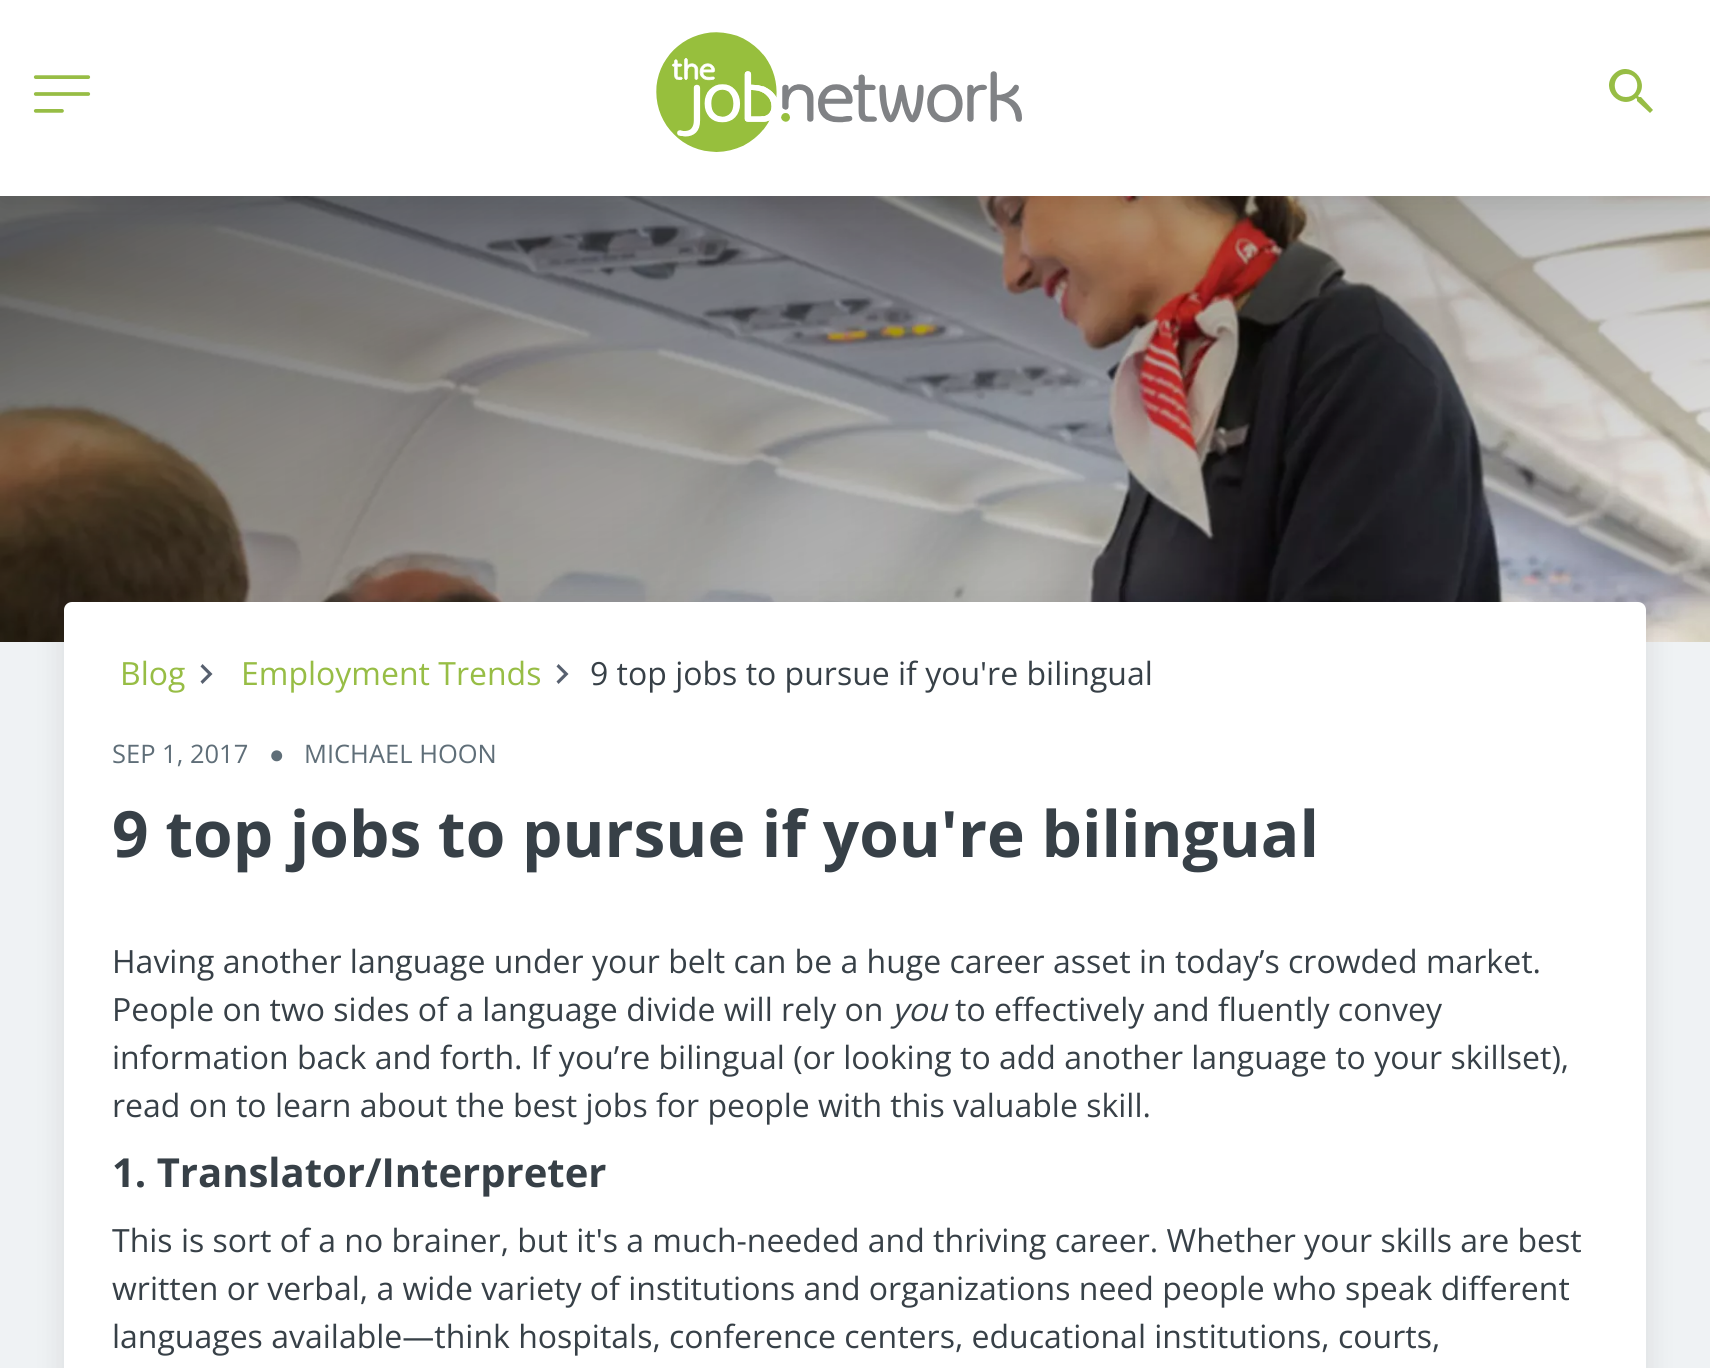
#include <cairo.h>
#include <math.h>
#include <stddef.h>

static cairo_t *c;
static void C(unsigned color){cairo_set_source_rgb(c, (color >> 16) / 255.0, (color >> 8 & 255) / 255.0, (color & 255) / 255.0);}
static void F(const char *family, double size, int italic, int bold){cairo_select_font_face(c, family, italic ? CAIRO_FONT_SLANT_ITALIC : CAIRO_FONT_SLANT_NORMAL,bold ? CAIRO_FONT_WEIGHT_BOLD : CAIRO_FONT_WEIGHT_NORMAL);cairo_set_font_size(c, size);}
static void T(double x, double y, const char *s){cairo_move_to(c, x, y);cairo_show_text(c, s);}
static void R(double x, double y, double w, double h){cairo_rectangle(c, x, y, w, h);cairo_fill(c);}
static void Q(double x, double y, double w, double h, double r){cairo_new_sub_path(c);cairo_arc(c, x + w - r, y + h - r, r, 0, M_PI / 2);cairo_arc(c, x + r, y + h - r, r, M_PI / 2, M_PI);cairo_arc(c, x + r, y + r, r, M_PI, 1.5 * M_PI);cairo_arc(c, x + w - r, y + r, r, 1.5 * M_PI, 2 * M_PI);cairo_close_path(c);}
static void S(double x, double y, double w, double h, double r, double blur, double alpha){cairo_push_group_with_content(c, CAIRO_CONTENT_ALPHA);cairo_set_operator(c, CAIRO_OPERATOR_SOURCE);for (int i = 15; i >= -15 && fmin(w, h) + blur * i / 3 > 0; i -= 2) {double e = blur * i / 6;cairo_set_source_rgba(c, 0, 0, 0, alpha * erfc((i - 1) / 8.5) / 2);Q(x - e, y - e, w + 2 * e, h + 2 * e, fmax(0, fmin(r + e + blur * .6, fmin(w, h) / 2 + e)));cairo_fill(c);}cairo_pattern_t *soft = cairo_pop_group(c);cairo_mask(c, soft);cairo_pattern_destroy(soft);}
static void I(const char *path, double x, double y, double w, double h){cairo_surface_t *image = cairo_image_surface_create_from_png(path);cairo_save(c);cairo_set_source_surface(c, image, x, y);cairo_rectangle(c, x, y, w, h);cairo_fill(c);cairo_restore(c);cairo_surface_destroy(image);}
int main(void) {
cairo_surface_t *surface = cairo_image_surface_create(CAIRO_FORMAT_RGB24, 1710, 1368);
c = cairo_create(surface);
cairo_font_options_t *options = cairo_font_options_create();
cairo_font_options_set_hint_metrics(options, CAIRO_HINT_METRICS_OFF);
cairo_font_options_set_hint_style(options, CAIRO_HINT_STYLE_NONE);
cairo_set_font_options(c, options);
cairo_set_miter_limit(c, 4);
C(0xeff2f4);
cairo_paint(c);
I("3.png",0,196,1710,446);
C(0x000000);
S(0,6,1710,196,0,15,.1);
C(0xffffff);
R(0,0,1710,196);
I("1.png",33,75,58,38);
I("2.png",656,32,366,120);
C(0x97bd45);
cairo_new_path(c);
cairo_move_to(c,1641,97);
cairo_line_to(c,1639,97);
cairo_line_to(c,1638,96);
cairo_curve_to(c,1651,81,1629,59,1614,74);
cairo_curve_to(c,1599,89,1621,111,1636,98);
cairo_line_to(c,1637,99);
cairo_line_to(c,1637,101);
cairo_line_to(c,1650,113);
cairo_line_to(c,1653,110);
cairo_close_path(c);
cairo_move_to(c,1626,97);
cairo_curve_to(c,1611,97,1611,74,1626,74);
cairo_curve_to(c,1641,74,1641,97,1626,97);
cairo_close_path(c);
cairo_fill(c);
C(0x000000);
S(64,608,1582,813,8,15,.1);
C(0xffffff);
Q(64,602,1582,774,8);
cairo_fill(c);
F("Open Sans",32,0,0);
C(0x97bd45);
T(120,685,"Blog");
C(0x57606f);
cairo_new_path(c);
cairo_move_to(c,200.5,681.5);
cairo_line_to(c,208,674);
cairo_line_to(c,200.5,666.5);
cairo_line_to(c,202.5,664);
cairo_line_to(c,212.5,674);
cairo_line_to(c,202.5,684);
cairo_close_path(c);
cairo_fill(c);
C(0x97bd45);
T(241,685,"Employment Trends");
C(0x57606f);
cairo_new_path(c);
cairo_move_to(c,556.5,681.5);
cairo_line_to(c,564,674);
cairo_line_to(c,556.5,666.5);
cairo_line_to(c,558.5,664);
cairo_line_to(c,568.5,674);
cairo_line_to(c,558.5,684);
cairo_close_path(c);
cairo_fill(c);
C(0x374047);
T(590,685,"9 top jobs to pursue if you're bilingual");
F("Open Sans",25.5,0,0);
C(0x5f6e78);
T(112,763,"SEP 1, 2017");
F("Liberation Sans",25.5,0,0);
T(269,763,"●");
F("Open Sans",25.5,0,0);
T(304,763,"MICHAEL HOON");
F("Open Sans",64,0,1);
C(0x374047);
T(112,857,"9 top jobs to pursue if you're bilingual");
F("Open Sans",32,0,0);
T(112,973,"Having another language under your belt can be a huge career asset in today’s crowded market.");
T(112,1021,"People on two sides of a language divide will rely on");
F("Open Sans",32,1,0);
T(892,1021,"you");
F("Open Sans",32,0,0);
T(955,1021,"to effectively and fluently convey");
T(112,1069,"information back and forth. If you’re bilingual (or looking to add another language to your skillset),");
T(112,1117,"read on to learn about the best jobs for people with this valuable skill.");
F("Open Sans",40,0,1);
T(112,1187,"1. Translator/Interpreter");
F("Open Sans",32,0,0);
T(112,1252,"This is sort of a no brainer, but it's a much-needed and thriving career. Whether your skills are best");
T(112,1300,"written or verbal, a wide variety of institutions and organizations need people who speak different");
T(112,1348,"languages available—think hospitals, conference centers, educational institutions, courts,");
cairo_surface_write_to_png(surface, "o.png");
cairo_font_options_destroy(options);
cairo_destroy(c);
cairo_surface_destroy(surface);
return 0;
}
